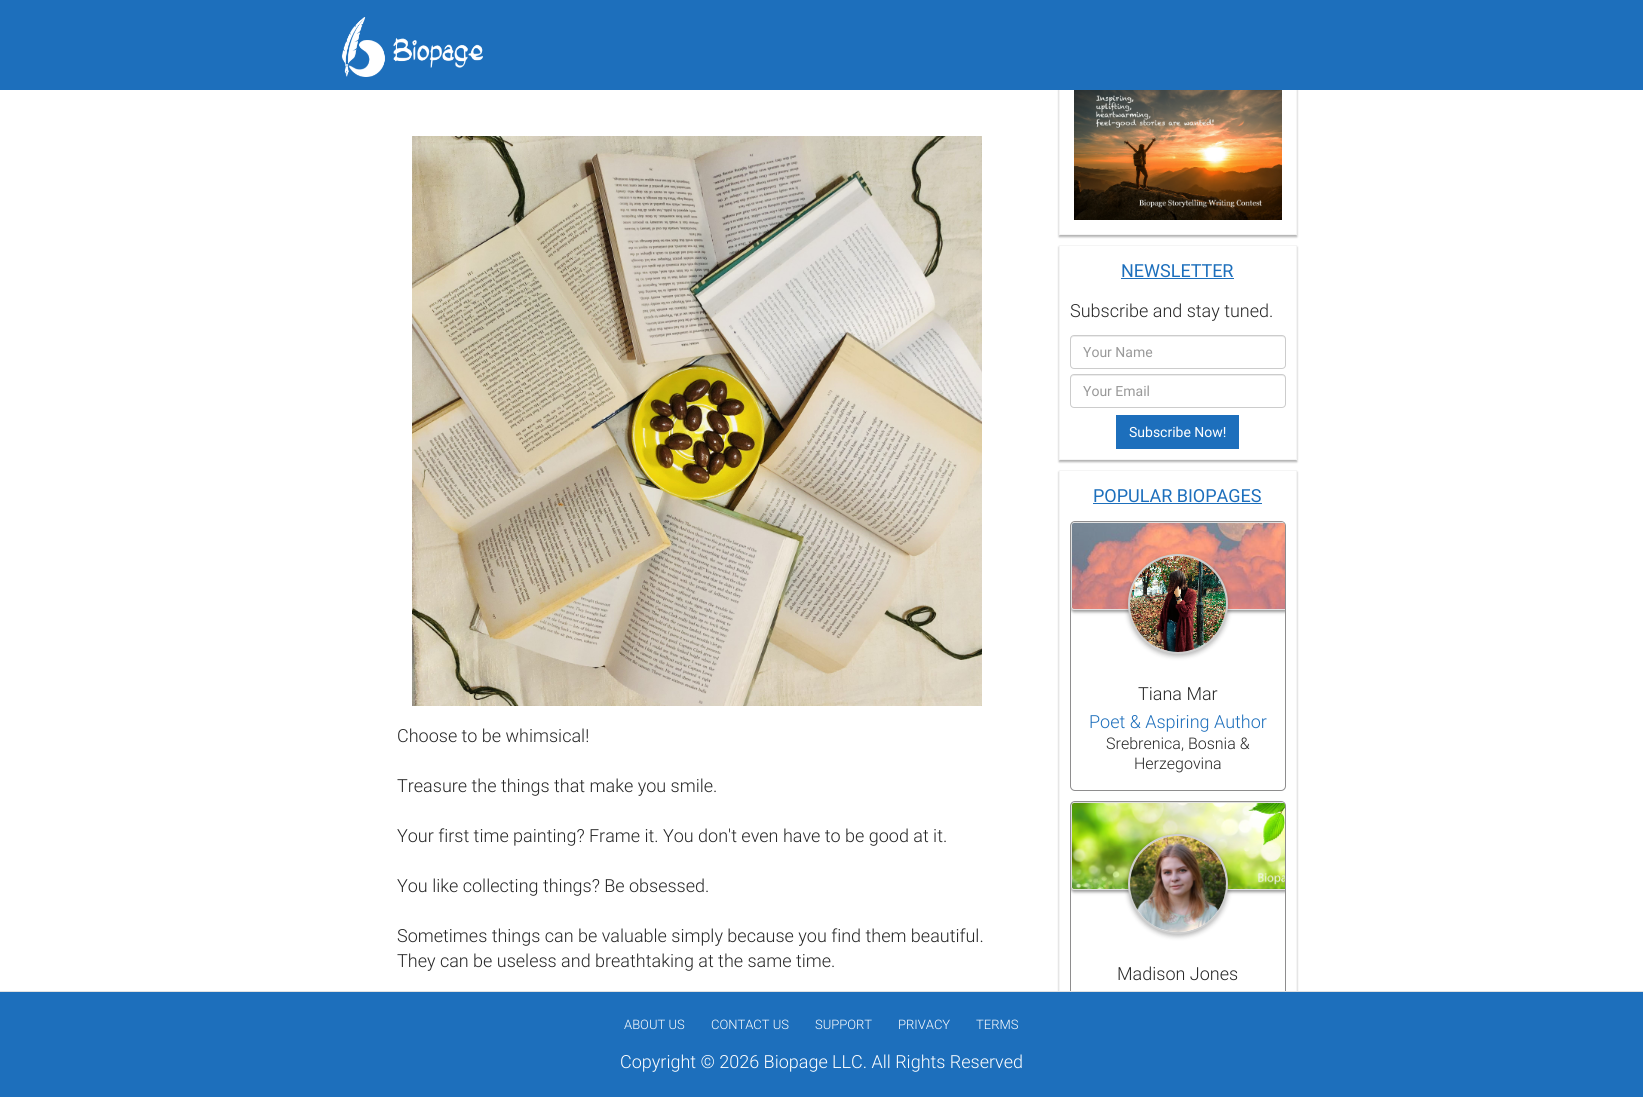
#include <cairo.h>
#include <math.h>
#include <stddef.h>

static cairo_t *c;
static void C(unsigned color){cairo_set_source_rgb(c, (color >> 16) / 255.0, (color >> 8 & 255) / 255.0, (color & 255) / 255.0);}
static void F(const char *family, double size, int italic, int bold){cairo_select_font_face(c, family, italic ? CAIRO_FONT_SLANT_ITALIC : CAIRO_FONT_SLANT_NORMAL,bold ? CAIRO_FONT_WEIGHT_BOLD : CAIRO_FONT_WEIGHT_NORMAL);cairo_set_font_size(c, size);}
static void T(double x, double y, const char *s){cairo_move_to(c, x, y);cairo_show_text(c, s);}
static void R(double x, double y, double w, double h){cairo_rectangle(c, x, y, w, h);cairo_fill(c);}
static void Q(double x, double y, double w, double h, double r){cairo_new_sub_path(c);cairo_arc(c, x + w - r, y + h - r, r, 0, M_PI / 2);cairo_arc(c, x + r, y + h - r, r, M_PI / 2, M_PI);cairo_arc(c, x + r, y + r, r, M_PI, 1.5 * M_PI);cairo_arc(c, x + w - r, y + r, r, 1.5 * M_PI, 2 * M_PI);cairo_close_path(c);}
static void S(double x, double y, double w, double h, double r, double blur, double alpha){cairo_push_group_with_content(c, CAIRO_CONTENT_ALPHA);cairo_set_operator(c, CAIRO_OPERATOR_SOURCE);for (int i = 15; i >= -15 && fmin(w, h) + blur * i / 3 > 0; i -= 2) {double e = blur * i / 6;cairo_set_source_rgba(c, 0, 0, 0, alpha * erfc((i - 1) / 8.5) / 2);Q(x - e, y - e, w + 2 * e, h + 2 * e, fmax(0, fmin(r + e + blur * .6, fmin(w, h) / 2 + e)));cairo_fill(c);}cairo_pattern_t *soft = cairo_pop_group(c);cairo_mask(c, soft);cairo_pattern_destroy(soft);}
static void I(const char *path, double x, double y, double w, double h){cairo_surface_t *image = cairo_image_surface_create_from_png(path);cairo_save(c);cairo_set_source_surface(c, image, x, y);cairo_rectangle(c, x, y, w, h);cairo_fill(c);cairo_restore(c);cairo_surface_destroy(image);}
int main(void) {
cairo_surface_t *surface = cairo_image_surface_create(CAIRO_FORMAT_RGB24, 1643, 1097);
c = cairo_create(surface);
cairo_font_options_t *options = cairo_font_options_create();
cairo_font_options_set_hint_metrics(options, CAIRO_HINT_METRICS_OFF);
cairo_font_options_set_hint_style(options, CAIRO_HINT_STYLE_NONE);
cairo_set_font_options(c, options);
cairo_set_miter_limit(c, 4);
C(0xffffff);
cairo_paint(c);
cairo_save(c);
cairo_set_fill_rule(c,CAIRO_FILL_RULE_EVEN_ODD);
cairo_new_path(c);
cairo_move_to(c,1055,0);
cairo_line_to(c,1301,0);
cairo_line_to(c,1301,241);
cairo_line_to(c,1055,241);
cairo_close_path(c);
cairo_move_to(c,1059,-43);
cairo_line_to(c,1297,-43);
cairo_line_to(c,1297,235);
cairo_line_to(c,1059,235);
cairo_close_path(c);
cairo_clip(c);
C(0x000000);
S(1059,-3,238,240,0,1,.3);
cairo_restore(c);
cairo_rectangle(c,1059.5,-.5,237,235);
C(0xf5f5f5);
cairo_set_line_width(c,1);
cairo_stroke(c);
C(0x1d6fbc);
R(0,0,1643,90);
I("1.png",341,17,142,60);
I("2.png",412,136,570,570);
F("Roboto Light",18,0,0);
C(0x272727);
T(397,742,"Choose to be whimsical!");
T(397,792,"Treasure the things that make you smile.");
T(397,842,"Your first time painting? Frame it. You don't even have to be good at it.");
T(397,892,"You like collecting things? Be obsessed.");
T(397,942,"Sometimes things can be valuable simply because you find them beautiful.");
T(397,967,"They can be useless and breathtaking at the same time.");
I("3.png",1074,90,208,130);
cairo_save(c);
cairo_set_fill_rule(c,CAIRO_FILL_RULE_EVEN_ODD);
cairo_new_path(c);
cairo_move_to(c,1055,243);
cairo_line_to(c,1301,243);
cairo_line_to(c,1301,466);
cairo_line_to(c,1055,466);
cairo_close_path(c);
cairo_move_to(c,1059,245);
cairo_line_to(c,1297,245);
cairo_line_to(c,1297,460);
cairo_line_to(c,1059,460);
cairo_close_path(c);
cairo_clip(c);
C(0x000000);
S(1059,247,238,215,0,1,.3);
cairo_restore(c);
cairo_rectangle(c,1059.5,245.5,237,214);
C(0xf5f5f5);
cairo_stroke(c);
F("Roboto",18,0,0);
C(0x1d6fbc);
T(1121,277,"NEWSLETTER");
R(1121,278,113,1);
F("Roboto Light",18,0,0);
C(0x272727);
T(1070,317,"Subscribe and stay tuned.");
C(0xececec);
cairo_new_path(c);
cairo_move_to(c,1074,337);
cairo_line_to(c,1282,337);
cairo_curve_to(c,1284,337,1285,338,1285,340);
cairo_line_to(c,1285,339);
cairo_curve_to(c,1285,337,1284,336,1282,336);
cairo_line_to(c,1074,336);
cairo_curve_to(c,1072,336,1071,337,1071,339);
cairo_line_to(c,1071,340);
cairo_curve_to(c,1071,338,1072,337,1074,337);
cairo_close_path(c);
cairo_fill(c);
Q(1070.5,335.5,215,33,3.5);
C(0xcccccc);
cairo_stroke(c);
F("Roboto",14,0,0);
C(0x999999);
T(1083,357,"Your Name");
C(0xececec);
cairo_new_path(c);
cairo_move_to(c,1074,376);
cairo_line_to(c,1282,376);
cairo_curve_to(c,1284,376,1285,377,1285,379);
cairo_line_to(c,1285,378);
cairo_curve_to(c,1285,376,1284,375,1282,375);
cairo_line_to(c,1074,375);
cairo_curve_to(c,1072,375,1071,376,1071,378);
cairo_line_to(c,1071,379);
cairo_curve_to(c,1071,377,1072,376,1074,376);
cairo_close_path(c);
cairo_fill(c);
Q(1070.5,374.5,215,33,3.5);
C(0xcccccc);
cairo_stroke(c);
C(0x999999);
T(1083,396,"Your Email");
C(0x1d6fbc);
R(1116,415,123,34);
C(0xffffff);
T(1129,437,"Subscribe Now!");
cairo_save(c);
cairo_set_fill_rule(c,CAIRO_FILL_RULE_EVEN_ODD);
cairo_new_path(c);
cairo_move_to(c,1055,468);
cairo_line_to(c,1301,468);
cairo_line_to(c,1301,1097);
cairo_line_to(c,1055,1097);
cairo_close_path(c);
cairo_move_to(c,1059,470);
cairo_line_to(c,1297,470);
cairo_line_to(c,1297,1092);
cairo_line_to(c,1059,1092);
cairo_close_path(c);
cairo_clip(c);
C(0x000000);
S(1059,472,238,622,0,1,.3);
cairo_restore(c);
cairo_rectangle(c,1059.5,470.5,237,621);
C(0xf5f5f5);
cairo_stroke(c);
F("Roboto",18,0,0);
C(0x1d6fbc);
T(1093,502,"POPULAR BIOPAGES");
R(1093,503,169,1);
Q(1070.5,521.5,215,269,4.5);
C(0x8e8d8e);
cairo_stroke(c);
cairo_save(c);
Q(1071,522,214,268,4);
cairo_clip(c);
C(0x000000);
S(1071,524,248,88,3,1.5,.4);
cairo_restore(c);
I("4.png",1071,523,214,86);
C(0xe1e1e1);
cairo_new_path(c);
cairo_move_to(c,1074,523);
cairo_line_to(c,1284,523);
cairo_curve_to(c,1283,522,1282,522,1281,522);
cairo_line_to(c,1075,522);
cairo_curve_to(c,1073,522,1071,524,1071,526);
cairo_line_to(c,1071,607);
cairo_curve_to(c,1071,609,1072,610,1074,610);
cairo_line_to(c,1285,610);
cairo_line_to(c,1285,609);
cairo_line_to(c,1074,609);
cairo_curve_to(c,1073,609,1072,608,1072,607);
cairo_line_to(c,1072,525);
cairo_curve_to(c,1072,524,1073,523,1074,523);
cairo_close_path(c);
cairo_fill(c);
C(0x000000);
S(1128,556,100,100,50,2.5,.3);
C(0xffffff);
cairo_arc(c,1178,604,49,0,2 * M_PI);
cairo_fill_preserve(c);
C(0xcecece);
cairo_set_line_width(c,2);
cairo_stroke(c);
I("5.png",1130,556,96,96);
F("Roboto Light",18,0,0);
C(0x272727);
T(1138,700,"Tiana Mar");
C(0x1d6fbc);
T(1089,728,"Poet & Aspiring Author");
F("Roboto Light",16,0,0);
C(0x272727);
T(1106,749,"Srebrenica, Bosnia &");
T(1134,769,"Herzegovina");
Q(1070.5,801.5,215,269,4.5);
C(0x8e8d8e);
cairo_set_line_width(c,1);
cairo_stroke(c);
cairo_save(c);
Q(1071,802,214,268,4);
cairo_clip(c);
C(0x000000);
S(1071,804,248,88,3,1.5,.4);
cairo_restore(c);
I("6.png",1071,803,214,86);
C(0xe1e1e1);
cairo_new_path(c);
cairo_move_to(c,1074,803);
cairo_line_to(c,1284,803);
cairo_curve_to(c,1283,802,1282,802,1281,802);
cairo_line_to(c,1075,802);
cairo_curve_to(c,1073,802,1071,804,1071,806);
cairo_line_to(c,1071,887);
cairo_curve_to(c,1071,889,1072,890,1074,890);
cairo_line_to(c,1285,890);
cairo_line_to(c,1285,889);
cairo_line_to(c,1074,889);
cairo_curve_to(c,1073,889,1072,888,1072,887);
cairo_line_to(c,1072,805);
cairo_curve_to(c,1072,804,1073,803,1074,803);
cairo_close_path(c);
cairo_fill(c);
C(0x000000);
S(1128,836,100,100,50,2.5,.3);
C(0xffffff);
cairo_arc(c,1178,884,49,0,2 * M_PI);
cairo_fill_preserve(c);
C(0xcecece);
cairo_set_line_width(c,2);
cairo_stroke(c);
I("7.png",1130,836,96,96);
F("Roboto Light",18,0,0);
C(0x272727);
T(1117,980,"Madison Jones");
C(0x1d6fbc);
R(0,992,1643,105);
C(0xe1e1e1);
R(0,991,1643,1);
F("Roboto Light",13,0,0);
C(0xffffff);
T(624,1029,"ABOUT US");
T(711,1029,"CONTACT US");
T(815,1029,"SUPPORT");
T(898,1029,"PRIVACY");
T(976,1029,"TERMS");
F("Roboto Light",18,0,0);
T(620,1068,"Copyright © 2026 Biopage LLC. All Rights Reserved");
cairo_surface_write_to_png(surface, "o.png");
cairo_font_options_destroy(options);
cairo_destroy(c);
cairo_surface_destroy(surface);
return 0;
}
